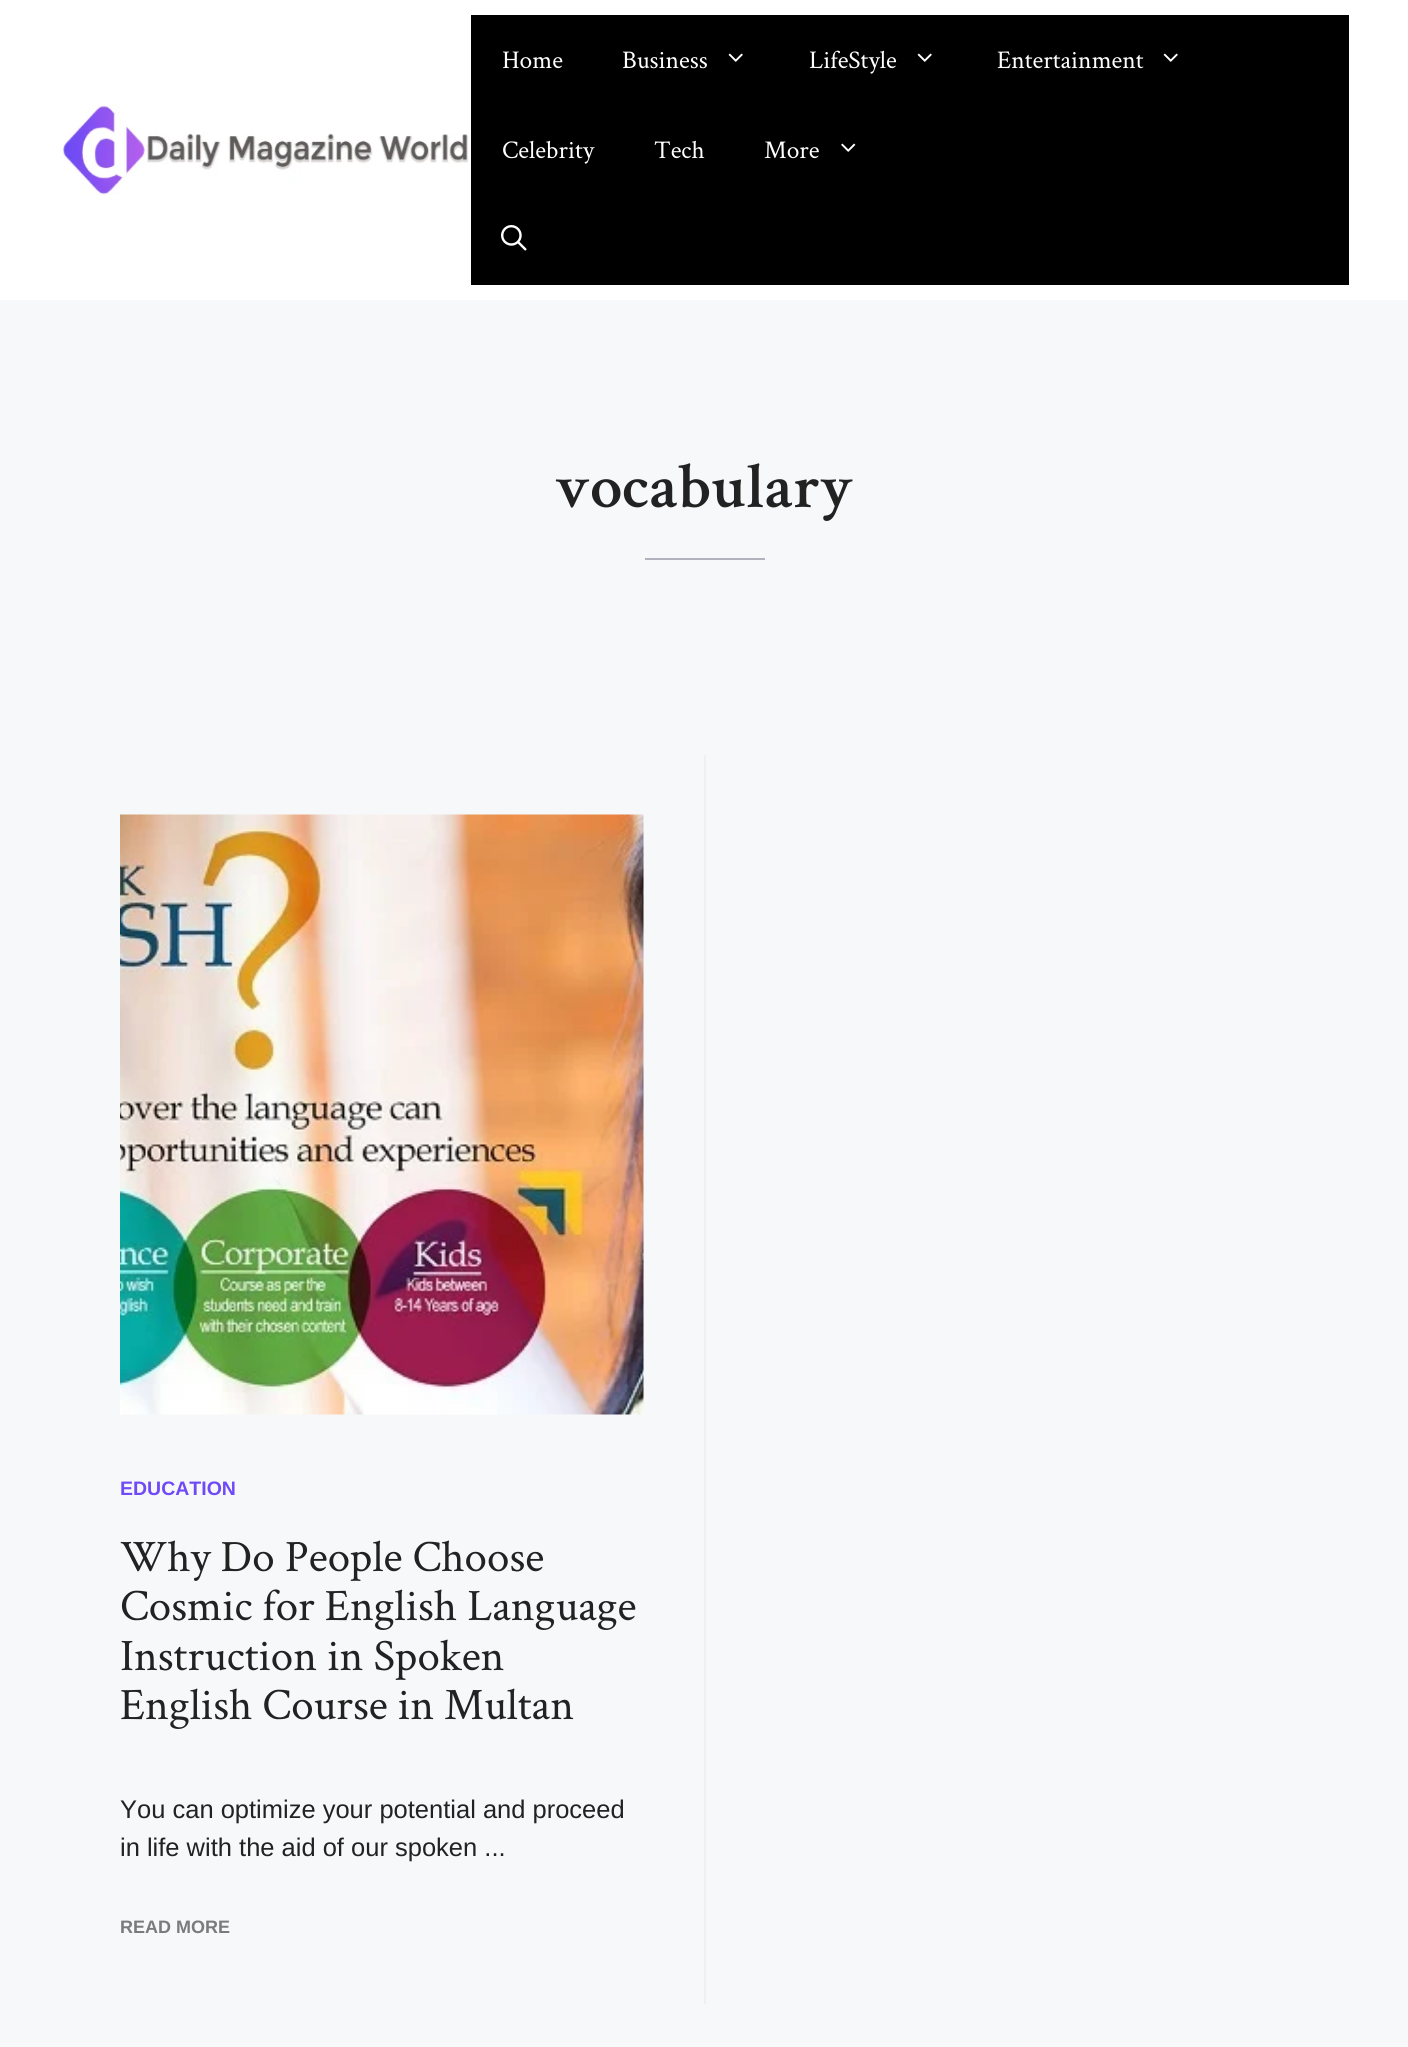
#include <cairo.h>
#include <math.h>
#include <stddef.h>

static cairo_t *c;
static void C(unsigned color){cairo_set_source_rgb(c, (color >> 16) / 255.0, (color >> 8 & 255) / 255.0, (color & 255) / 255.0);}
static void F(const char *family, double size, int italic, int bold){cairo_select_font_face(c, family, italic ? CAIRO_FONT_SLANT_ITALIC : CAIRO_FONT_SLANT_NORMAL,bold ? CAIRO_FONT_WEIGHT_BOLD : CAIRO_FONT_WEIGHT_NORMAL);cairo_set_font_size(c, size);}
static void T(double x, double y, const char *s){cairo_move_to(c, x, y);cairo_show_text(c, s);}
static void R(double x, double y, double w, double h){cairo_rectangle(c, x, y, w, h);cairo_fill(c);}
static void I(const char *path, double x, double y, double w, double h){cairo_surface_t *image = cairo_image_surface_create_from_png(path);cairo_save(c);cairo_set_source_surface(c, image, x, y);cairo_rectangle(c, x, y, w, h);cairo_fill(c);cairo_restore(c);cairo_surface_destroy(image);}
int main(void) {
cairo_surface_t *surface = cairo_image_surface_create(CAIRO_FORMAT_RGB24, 1408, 2047);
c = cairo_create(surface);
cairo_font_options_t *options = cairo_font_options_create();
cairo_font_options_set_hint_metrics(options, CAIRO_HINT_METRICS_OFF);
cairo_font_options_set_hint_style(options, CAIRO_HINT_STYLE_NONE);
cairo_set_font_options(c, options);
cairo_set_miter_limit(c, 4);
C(0xf7f8f9);
cairo_paint(c);
C(0xffffff);
R(0,0,1408,300);
I("1.png",60,104,409,91);
C(0x000000);
R(471,15,878,270);
F("Crimson Text",25.5,0,0);
C(0xffffff);
T(502,68,"Home");
T(622,68,"Business");
I("2.png",728,53,15,9);
T(809,68,"LifeStyle");
I("2.png",917,53,15,9);
T(997,68,"Entertainment");
I("2.png",1163,53,15,9);
T(502,158,"Celebrity");
T(654,158,"Tech");
T(764,158,"More");
I("3.png",841,143,15,9);
I("4.png",501,225,26,26);
F("Crimson Text SemiBold",64.5,0,0);
C(0x222222);
T(555,507,"vocabulary");
C(0xb2b2be);
R(645,558,120,2);
C(0xf0f0f0);
R(704,755,2,1249);
I("5.png",120,814,524,601);
F("Liberation Sans",19.5,0,1);
C(0x704af7);
T(120,1495,"EDUCATION");
F("Crimson Text",45,0,0);
C(0x222222);
T(120,1571,"Why Do People Choose");
T(120,1620,"Cosmic for English Language");
T(120,1670,"Instruction in Spoken");
T(120,1719,"English Course in Multan");
F("Liberation Sans",25.5,0,0);
T(120,1818,"You can optimize your potential and proceed");
T(120,1856,"in life with the aid of our spoken ...");
F("Liberation Sans",18,0,1);
C(0x7b7b7c);
T(120,1933,"READ MORE");
cairo_surface_write_to_png(surface, "o.png");
cairo_font_options_destroy(options);
cairo_destroy(c);
cairo_surface_destroy(surface);
return 0;
}
